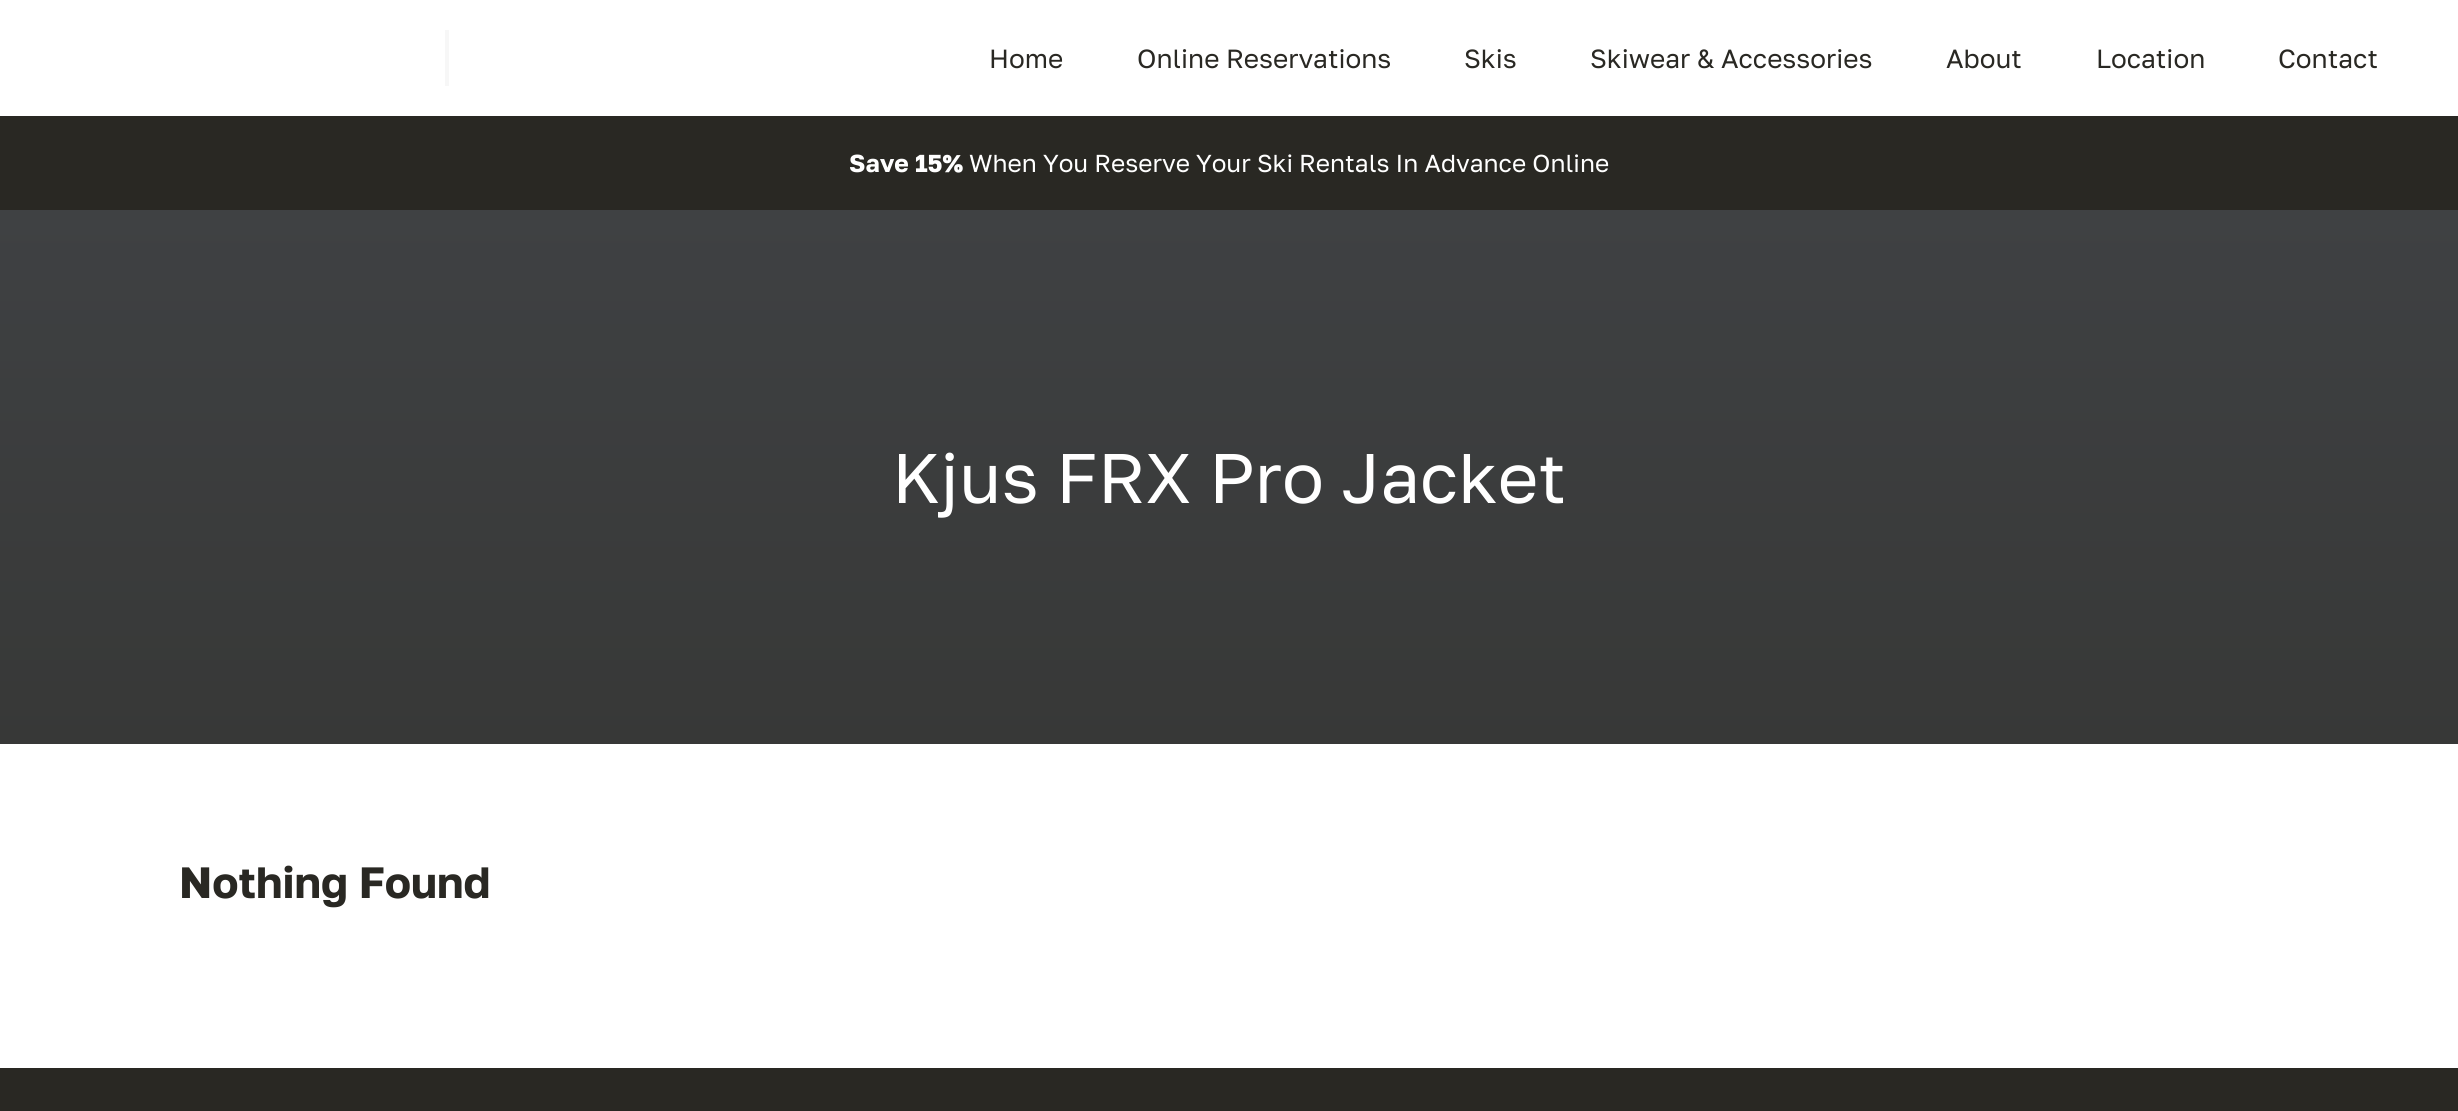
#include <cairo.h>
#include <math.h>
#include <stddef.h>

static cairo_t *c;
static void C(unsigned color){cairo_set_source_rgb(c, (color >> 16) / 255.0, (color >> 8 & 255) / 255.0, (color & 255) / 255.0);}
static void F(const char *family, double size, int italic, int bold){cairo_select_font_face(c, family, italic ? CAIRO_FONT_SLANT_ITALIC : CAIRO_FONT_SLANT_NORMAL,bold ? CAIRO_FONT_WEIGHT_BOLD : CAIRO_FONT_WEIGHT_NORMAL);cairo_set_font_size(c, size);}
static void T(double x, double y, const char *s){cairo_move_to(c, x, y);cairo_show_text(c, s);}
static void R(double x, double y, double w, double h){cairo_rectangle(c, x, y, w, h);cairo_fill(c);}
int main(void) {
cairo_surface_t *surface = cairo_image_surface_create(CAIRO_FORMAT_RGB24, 2458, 1111);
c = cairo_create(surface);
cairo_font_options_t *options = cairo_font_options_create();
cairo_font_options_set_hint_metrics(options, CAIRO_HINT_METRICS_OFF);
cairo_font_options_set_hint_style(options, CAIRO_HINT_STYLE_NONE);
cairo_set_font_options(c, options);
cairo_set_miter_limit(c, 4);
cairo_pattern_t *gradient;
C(0xffffff);
cairo_paint(c);
C(0xf7f7f7);
R(445,30,4,56);
F("Golos Text",26.25,0,0);
C(0x292823);
T(989,68,"Home");
T(1137,68,"Online Reservations");
T(1464,68,"Skis");
T(1590,68,"Skiwear & Accessories");
T(1946,68,"About");
T(2096,68,"Location");
T(2278,68,"Contact");
R(0,116,2458,94);
F("Golos Text",24.5,0,1);
C(0xffffff);
T(849,172,"Save 15%");
F("Golos Text",24.5,0,0);
T(969,172,"When You Reserve Your Ski Rentals In Advance Online");
gradient = cairo_pattern_create_linear(1229,210,1229,744);
cairo_pattern_add_color_stop_rgba(gradient,0,0.247,0.255,0.263,1);
cairo_pattern_add_color_stop_rgba(gradient,1,0.216,0.22,0.216,1);
cairo_set_source(c,gradient);
cairo_pattern_destroy(gradient);
R(0,210,2458,534);
F("Golos Text",70,0,0);
C(0xffffff);
T(892,503,"Kjus FRX Pro Jacket");
F("Golos Text",43.75,0,1);
C(0x292823);
T(179,898,"Nothing Found");
R(0,1068,2458,43);
cairo_surface_write_to_png(surface, "o.png");
cairo_font_options_destroy(options);
cairo_destroy(c);
cairo_surface_destroy(surface);
return 0;
}
